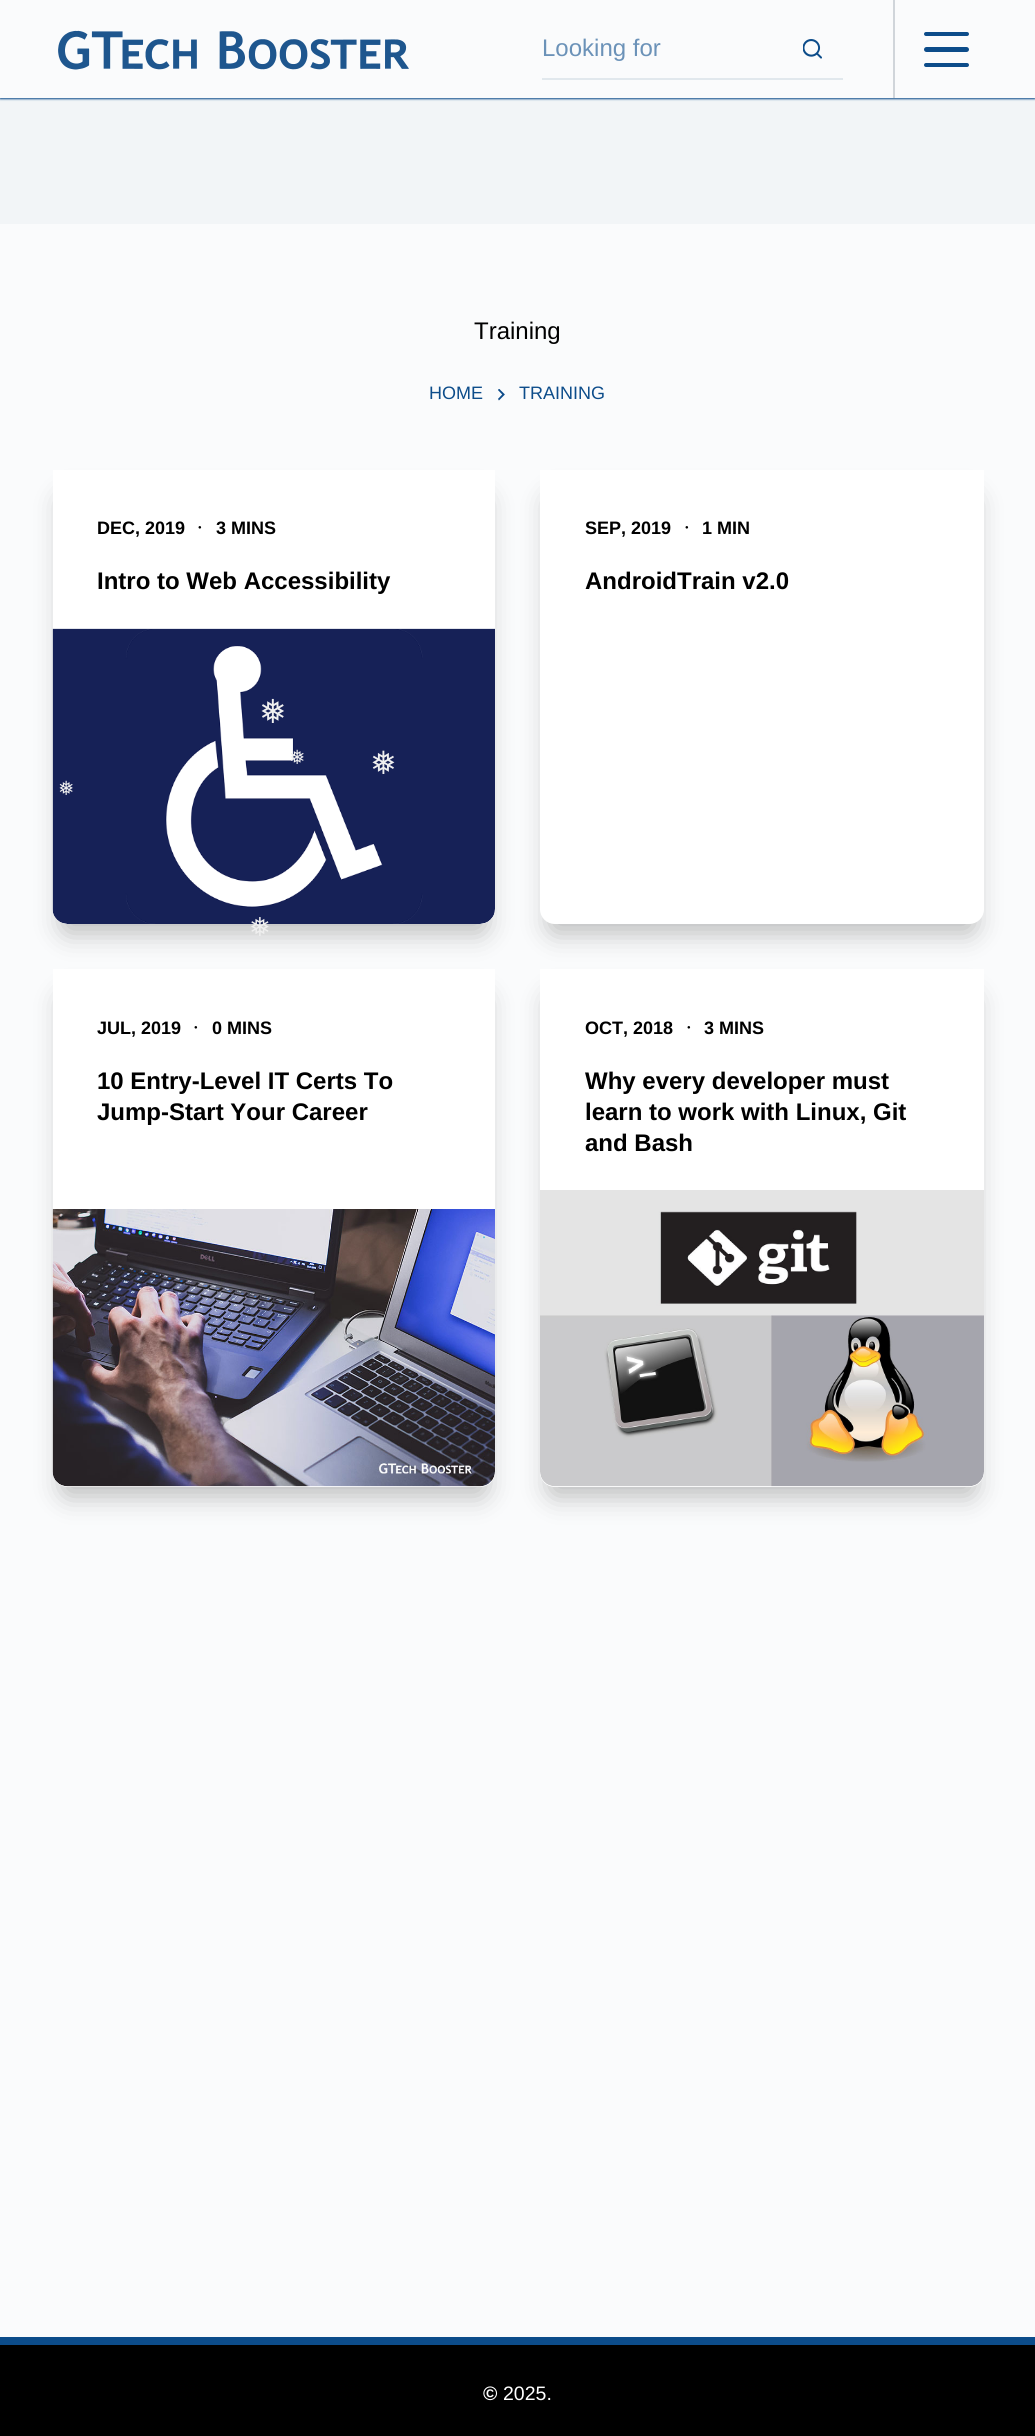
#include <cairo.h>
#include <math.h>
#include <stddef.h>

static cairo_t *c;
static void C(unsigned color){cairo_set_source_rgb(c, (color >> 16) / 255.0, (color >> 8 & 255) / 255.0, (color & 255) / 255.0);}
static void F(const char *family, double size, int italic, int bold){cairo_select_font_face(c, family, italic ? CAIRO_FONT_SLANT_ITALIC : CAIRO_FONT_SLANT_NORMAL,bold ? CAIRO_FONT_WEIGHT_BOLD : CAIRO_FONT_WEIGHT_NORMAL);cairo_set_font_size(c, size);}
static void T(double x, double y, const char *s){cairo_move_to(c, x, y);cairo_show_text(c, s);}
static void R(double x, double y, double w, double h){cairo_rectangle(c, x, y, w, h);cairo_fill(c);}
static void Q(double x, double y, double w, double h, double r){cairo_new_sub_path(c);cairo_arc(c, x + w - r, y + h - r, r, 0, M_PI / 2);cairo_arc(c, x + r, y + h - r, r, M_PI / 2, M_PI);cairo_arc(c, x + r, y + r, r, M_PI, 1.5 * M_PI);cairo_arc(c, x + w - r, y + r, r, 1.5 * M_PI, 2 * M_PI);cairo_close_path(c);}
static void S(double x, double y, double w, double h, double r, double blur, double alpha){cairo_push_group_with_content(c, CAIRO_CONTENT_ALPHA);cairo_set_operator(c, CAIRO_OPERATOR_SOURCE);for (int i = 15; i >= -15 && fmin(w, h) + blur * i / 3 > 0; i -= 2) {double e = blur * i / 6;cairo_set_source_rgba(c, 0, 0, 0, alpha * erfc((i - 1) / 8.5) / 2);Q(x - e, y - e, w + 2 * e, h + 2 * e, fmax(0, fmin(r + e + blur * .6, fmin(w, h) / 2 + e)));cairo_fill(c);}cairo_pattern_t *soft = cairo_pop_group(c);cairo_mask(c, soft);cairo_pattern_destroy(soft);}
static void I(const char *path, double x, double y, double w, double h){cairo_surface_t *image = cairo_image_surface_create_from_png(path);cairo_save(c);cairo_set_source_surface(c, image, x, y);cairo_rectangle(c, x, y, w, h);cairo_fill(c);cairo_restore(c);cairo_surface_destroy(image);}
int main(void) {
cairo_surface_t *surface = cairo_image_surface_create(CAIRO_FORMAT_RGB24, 1035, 2436);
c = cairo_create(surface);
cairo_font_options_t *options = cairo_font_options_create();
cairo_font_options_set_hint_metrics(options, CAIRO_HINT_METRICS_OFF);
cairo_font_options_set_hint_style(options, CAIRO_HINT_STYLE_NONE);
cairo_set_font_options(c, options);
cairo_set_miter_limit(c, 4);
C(0xfafbfc);
cairo_paint(c);
C(0xf2f5f7);
R(0,98,1035,126);
cairo_save(c);
cairo_set_fill_rule(c,CAIRO_FILL_RULE_EVEN_ODD);
cairo_new_path(c);
cairo_move_to(c,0,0);
cairo_line_to(c,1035,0);
cairo_line_to(c,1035,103);
cairo_line_to(c,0,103);
cairo_close_path(c);
cairo_move_to(c,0,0);
cairo_line_to(c,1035,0);
cairo_line_to(c,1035,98);
cairo_line_to(c,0,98);
cairo_close_path(c);
cairo_clip(c);
C(0x0c4c8a);
S(0,2,1035,97,0,1,1);
cairo_restore(c);
I("1.png",58,30,351,40);
C(0xe1e8ed);
R(542,78,301,2);
F("Liberation Sans",24,0,0);
C(0x6b92b8);
T(542,56,"Looking for");
I("2.png",803,39,19,20);
cairo_set_source_rgba(c,0.173,0.243,0.314,0.2);
R(893,0,2,98);
C(0x0c4c8a);
Q(924,32,45,4,2);
cairo_fill(c);
Q(924,47,45,5,2.5);
cairo_fill(c);
Q(924,63,45,4,2);
cairo_fill(c);
C(0x000000);
T(474,339,"Training");
F("Liberation Sans",18,0,0);
C(0x0c4c8a);
T(429,399,"HOME");
I("3.png",498,389,7,12);
T(519,399,"TRAINING");
C(0x000000);
S(62,497,424,436,6,13.5,.26);
C(0xffffff);
cairo_new_path(c);
cairo_move_to(c,53,470);
cairo_line_to(c,495,470);
cairo_line_to(c,495,909);
cairo_curve_to(c,495,917.5,488.5,924,480,924);
cairo_line_to(c,68,924);
cairo_curve_to(c,59.5,924,53,917.5,53,909);
cairo_close_path(c);
cairo_fill(c);
F("Liberation Sans",18,0,1);
C(0x000000);
T(97,534,"DEC, 2019");
F("Liberation Sans",6,0,1);
T(198,529,"●");
F("Liberation Sans",18,0,1);
T(216,534,"3 MINS");
F("Liberation Sans",24,0,1);
T(97,589,"Intro to Web Accessibility");
I("4.png",52,628,443,296);
C(0x000000);
S(549,497,426,436,6,13.5,.26);
C(0xffffff);
cairo_new_path(c);
cairo_move_to(c,540,470);
cairo_line_to(c,984,470);
cairo_line_to(c,984,909);
cairo_curve_to(c,984,917.5,977.5,924,969,924);
cairo_line_to(c,555,924);
cairo_curve_to(c,546.5,924,540,917.5,540,909);
cairo_close_path(c);
cairo_fill(c);
F("Liberation Sans",18,0,1);
C(0x000000);
T(585,534,"SEP, 2019");
F("Liberation Sans",6,0,1);
T(685,529,"●");
F("Liberation Sans",18,0,1);
T(702,534,"1 MIN");
F("Liberation Sans",24,0,1);
T(585,589,"AndroidTrain v2.0");
C(0x000000);
S(62,996,424,500,6,13.5,.26);
C(0xffffff);
cairo_new_path(c);
cairo_move_to(c,53,969);
cairo_line_to(c,495,969);
cairo_line_to(c,495,1472);
cairo_curve_to(c,495,1480.5,488.5,1487,480,1487);
cairo_line_to(c,68,1487);
cairo_curve_to(c,59.5,1487,53,1480.5,53,1472);
cairo_close_path(c);
cairo_fill(c);
F("Liberation Sans",18,0,1);
C(0x000000);
T(97,1034,"JUL, 2019");
F("Liberation Sans",6,0,1);
T(194,1029,"●");
F("Liberation Sans",18,0,1);
T(212,1034,"0 MINS");
F("Liberation Sans",24,0,1);
T(97,1089,"10 Entry-Level IT Certs To");
T(97,1120,"Jump-Start Your Career");
I("5.png",52,1209,443,278);
C(0x000000);
S(549,996,426,500,6,13.5,.26);
C(0xffffff);
cairo_new_path(c);
cairo_move_to(c,540,969);
cairo_line_to(c,984,969);
cairo_line_to(c,984,1472);
cairo_curve_to(c,984,1480.5,977.5,1487,969,1487);
cairo_line_to(c,555,1487);
cairo_curve_to(c,546.5,1487,540,1480.5,540,1472);
cairo_close_path(c);
cairo_fill(c);
F("Liberation Sans",18,0,1);
C(0x000000);
T(585,1034,"OCT, 2018");
F("Liberation Sans",6,0,1);
T(687,1029,"●");
F("Liberation Sans",18,0,1);
T(704,1034,"3 MINS");
F("Liberation Sans",24,0,1);
T(585,1089,"Why every developer must");
T(585,1120,"learn to work with Linux, Git");
T(585,1151,"and Bash");
I("6.png",540,1190,444,297);
R(0,2345,1035,91);
C(0x0c4c8a);
R(0,2337,1035,8);
F("Liberation Sans",19.5,0,1);
C(0xffffff);
T(483,2400,"©");
F("Liberation Sans",19.5,0,0);
T(503,2400,"2025.");
F("DejaVu Sans",33,0,0);
C(0xefefef);
T(259,723,"❅");
F("DejaVu Sans",19.5,0,0);
T(289,764,"❅");
F("DejaVu Sans",32,0,0);
T(370,774,"❅");
F("DejaVu Sans",19.5,0,0);
T(58,795,"❅");
F("DejaVu Sans",26,0,0);
T(249,936,"❅");
cairo_surface_write_to_png(surface, "o.png");
cairo_font_options_destroy(options);
cairo_destroy(c);
cairo_surface_destroy(surface);
return 0;
}
